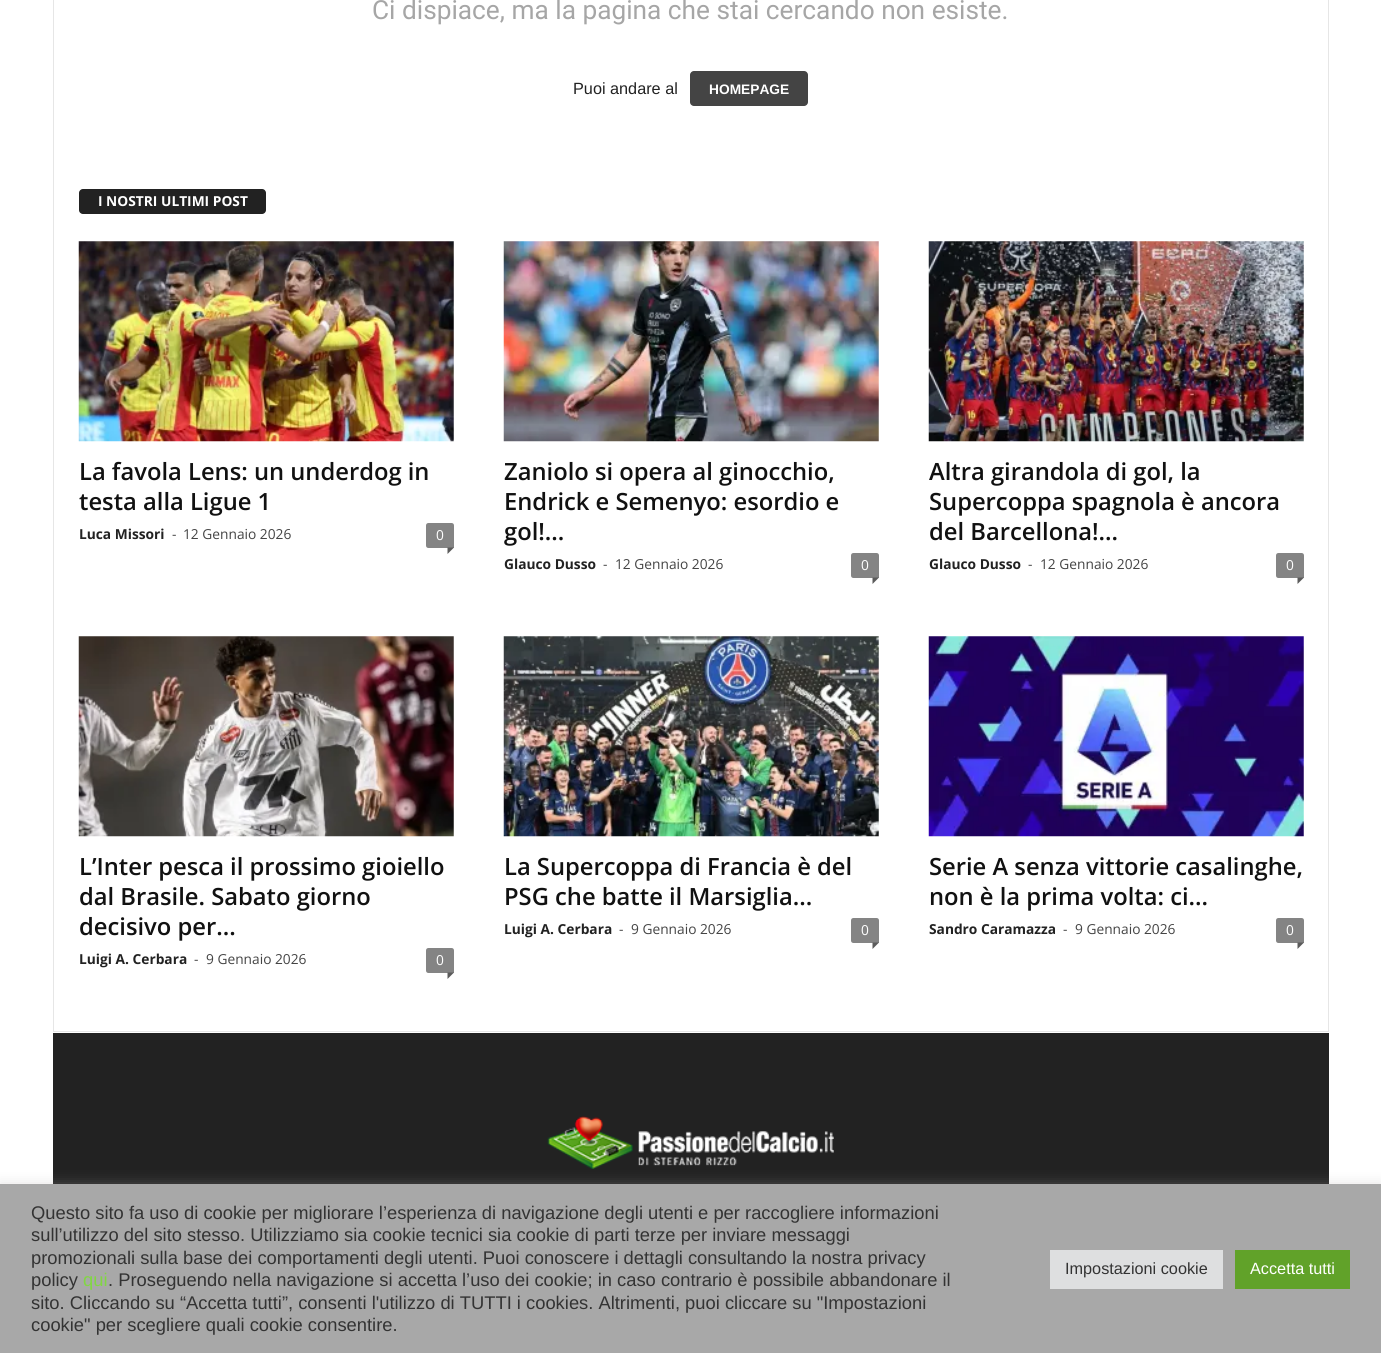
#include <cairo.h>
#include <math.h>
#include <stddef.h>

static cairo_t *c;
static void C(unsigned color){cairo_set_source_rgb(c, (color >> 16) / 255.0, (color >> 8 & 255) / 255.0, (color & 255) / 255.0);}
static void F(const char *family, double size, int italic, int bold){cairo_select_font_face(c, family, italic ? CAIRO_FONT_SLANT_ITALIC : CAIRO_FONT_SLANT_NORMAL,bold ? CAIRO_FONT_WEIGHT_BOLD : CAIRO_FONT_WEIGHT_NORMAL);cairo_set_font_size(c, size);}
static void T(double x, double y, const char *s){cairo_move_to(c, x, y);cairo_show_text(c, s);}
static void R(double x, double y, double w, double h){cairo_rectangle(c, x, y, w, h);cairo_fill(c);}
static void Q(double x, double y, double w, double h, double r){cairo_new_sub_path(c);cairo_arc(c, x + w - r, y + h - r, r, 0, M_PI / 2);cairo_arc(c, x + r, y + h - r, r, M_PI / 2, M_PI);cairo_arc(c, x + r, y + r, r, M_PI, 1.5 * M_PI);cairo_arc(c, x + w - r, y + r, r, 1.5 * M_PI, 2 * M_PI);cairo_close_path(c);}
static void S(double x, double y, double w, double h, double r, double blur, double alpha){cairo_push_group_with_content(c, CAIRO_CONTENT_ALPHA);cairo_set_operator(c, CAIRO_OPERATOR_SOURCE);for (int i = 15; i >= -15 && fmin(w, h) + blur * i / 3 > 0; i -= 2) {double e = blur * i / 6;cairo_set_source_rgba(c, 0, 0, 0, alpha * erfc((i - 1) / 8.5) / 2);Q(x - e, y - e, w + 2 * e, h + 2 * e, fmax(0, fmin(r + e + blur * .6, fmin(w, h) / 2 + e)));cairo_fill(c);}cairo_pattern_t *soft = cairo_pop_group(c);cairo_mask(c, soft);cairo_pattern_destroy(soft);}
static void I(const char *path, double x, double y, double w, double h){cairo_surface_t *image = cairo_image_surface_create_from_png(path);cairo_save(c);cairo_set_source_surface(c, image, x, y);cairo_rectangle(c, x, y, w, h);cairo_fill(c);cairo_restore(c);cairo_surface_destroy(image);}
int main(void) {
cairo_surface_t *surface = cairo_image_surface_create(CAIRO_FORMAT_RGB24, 1381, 1353);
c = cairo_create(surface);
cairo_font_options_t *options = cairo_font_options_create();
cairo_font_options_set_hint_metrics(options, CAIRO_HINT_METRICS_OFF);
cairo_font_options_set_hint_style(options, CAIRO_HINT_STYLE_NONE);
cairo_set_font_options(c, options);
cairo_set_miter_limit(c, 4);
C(0xffffff);
cairo_paint(c);
C(0xe6e6e6);
R(53,1031,1276,1);
R(53,0,1,1031);
F("Roboto",26.25,0,0);
C(0xa6a6a6);
T(372,19,"Ci dispiace, ma la pagina che stai cercando non esiste.");
F("Liberation Sans",16.25,0,0);
C(0x222222);
T(573,94,"Puoi andare al");
C(0x444444);
Q(690,71,118,35,4);
cairo_fill(c);
F("Liberation Sans",13.75,0,1);
C(0xffffff);
T(709,94,"HOMEPAGE");
C(0x222222);
Q(79,189,187,25,4);
cairo_fill(c);
F("Open Sans",13.75,0,1);
C(0xffffff);
T(98,206,"I NOSTRI ULTIMI POST");
I("1.png",78,241,376,201);
F("Open Sans SemiBold",23.75,0,0);
C(0x111111);
T(79,480,"La favola Lens: un underdog in");
T(79,510,"testa alla Ligue 1");
F("Open Sans",13.75,0,1);
C(0x222222);
T(79,539,"Luca Missori");
F("Open Sans",13.75,0,0);
C(0x444444);
T(172,539,"-");
T(183,539,"12 Gennaio 2026");
C(0x848484);
cairo_new_path(c);
cairo_move_to(c,428.5,523);
cairo_line_to(c,451.5,523);
cairo_curve_to(c,453,523,454,524,454,525.5);
cairo_line_to(c,454,548);
cairo_line_to(c,428.5,548);
cairo_curve_to(c,427,548,426,547,426,545.5);
cairo_line_to(c,426,525.5);
cairo_curve_to(c,426,524,427,523,428.5,523);
cairo_close_path(c);
cairo_fill(c);
C(0xffffff);
T(436,540,"0");
C(0x5b5b5b);
cairo_new_path(c);
cairo_move_to(c,447.5,547.5);
cairo_line_to(c,454,547.5);
cairo_line_to(c,447.5,554);
cairo_close_path(c);
cairo_fill(c);
I("2.png",503,241,376,201);
F("Open Sans SemiBold",23.75,0,0);
C(0x111111);
T(504,480,"Zaniolo si opera al ginocchio,");
T(504,510,"Endrick e Semenyo: esordio e");
T(504,540,"gol!...");
F("Open Sans",13.75,0,1);
C(0x222222);
T(504,569,"Glauco Dusso");
F("Open Sans",13.75,0,0);
C(0x444444);
T(603,569,"-");
T(615,569,"12 Gennaio 2026");
C(0x848484);
cairo_new_path(c);
cairo_move_to(c,853.5,553);
cairo_line_to(c,876.5,553);
cairo_curve_to(c,878,553,879,554,879,555.5);
cairo_line_to(c,879,578);
cairo_line_to(c,853.5,578);
cairo_curve_to(c,852,578,851,577,851,575.5);
cairo_line_to(c,851,555.5);
cairo_curve_to(c,851,554,852,553,853.5,553);
cairo_close_path(c);
cairo_fill(c);
C(0xffffff);
T(861,570,"0");
C(0x5b5b5b);
cairo_new_path(c);
cairo_move_to(c,872.5,577.5);
cairo_line_to(c,879,577.5);
cairo_line_to(c,872.5,584);
cairo_close_path(c);
cairo_fill(c);
I("3.png",928,241,376,201);
F("Open Sans SemiBold",23.75,0,0);
C(0x111111);
T(929,480,"Altra girandola di gol, la");
T(929,510,"Supercoppa spagnola è ancora");
T(929,540,"del Barcellona!...");
F("Open Sans",13.75,0,1);
C(0x222222);
T(929,569,"Glauco Dusso");
F("Open Sans",13.75,0,0);
C(0x444444);
T(1028,569,"-");
T(1040,569,"12 Gennaio 2026");
C(0x848484);
cairo_new_path(c);
cairo_move_to(c,1278.5,553);
cairo_line_to(c,1301.5,553);
cairo_curve_to(c,1303,553,1304,554,1304,555.5);
cairo_line_to(c,1304,578);
cairo_line_to(c,1278.5,578);
cairo_curve_to(c,1277,578,1276,577,1276,575.5);
cairo_line_to(c,1276,555.5);
cairo_curve_to(c,1276,554,1277,553,1278.5,553);
cairo_close_path(c);
cairo_fill(c);
C(0xffffff);
T(1286,570,"0");
C(0x5b5b5b);
cairo_new_path(c);
cairo_move_to(c,1297.5,577.5);
cairo_line_to(c,1304,577.5);
cairo_line_to(c,1297.5,584);
cairo_close_path(c);
cairo_fill(c);
I("4.png",78,636,376,201);
F("Open Sans SemiBold",23.75,0,0);
C(0x111111);
T(79,875,"L’Inter pesca il prossimo gioiello");
T(79,905,"dal Brasile. Sabato giorno");
T(79,935,"decisivo per...");
F("Open Sans",13.75,0,1);
C(0x222222);
T(79,964,"Luigi A. Cerbara");
F("Open Sans",13.75,0,0);
C(0x444444);
T(194,964,"-");
T(206,964,"9 Gennaio 2026");
C(0x848484);
cairo_new_path(c);
cairo_move_to(c,428.5,948);
cairo_line_to(c,451.5,948);
cairo_curve_to(c,453,948,454,949,454,950.5);
cairo_line_to(c,454,973);
cairo_line_to(c,428.5,973);
cairo_curve_to(c,427,973,426,972,426,970.5);
cairo_line_to(c,426,950.5);
cairo_curve_to(c,426,949,427,948,428.5,948);
cairo_close_path(c);
cairo_fill(c);
C(0xffffff);
T(436,965,"0");
C(0x5b5b5b);
cairo_new_path(c);
cairo_move_to(c,447.5,972.5);
cairo_line_to(c,454,972.5);
cairo_line_to(c,447.5,979);
cairo_close_path(c);
cairo_fill(c);
I("5.png",503,636,376,201);
F("Open Sans SemiBold",23.75,0,0);
C(0x111111);
T(504,875,"La Supercoppa di Francia è del");
T(504,905,"PSG che batte il Marsiglia...");
F("Open Sans",13.75,0,1);
C(0x222222);
T(504,934,"Luigi A. Cerbara");
F("Open Sans",13.75,0,0);
C(0x444444);
T(619,934,"-");
T(631,934,"9 Gennaio 2026");
C(0x848484);
cairo_new_path(c);
cairo_move_to(c,853.5,918);
cairo_line_to(c,876.5,918);
cairo_curve_to(c,878,918,879,919,879,920.5);
cairo_line_to(c,879,943);
cairo_line_to(c,853.5,943);
cairo_curve_to(c,852,943,851,942,851,940.5);
cairo_line_to(c,851,920.5);
cairo_curve_to(c,851,919,852,918,853.5,918);
cairo_close_path(c);
cairo_fill(c);
C(0xffffff);
T(861,935,"0");
C(0x5b5b5b);
cairo_new_path(c);
cairo_move_to(c,872.5,942.5);
cairo_line_to(c,879,942.5);
cairo_line_to(c,872.5,949);
cairo_close_path(c);
cairo_fill(c);
I("6.png",928,636,376,201);
F("Open Sans SemiBold",23.75,0,0);
C(0x111111);
T(929,875,"Serie A senza vittorie casalinghe,");
T(929,905,"non è la prima volta: ci...");
F("Open Sans",13.75,0,1);
C(0x222222);
T(929,934,"Sandro Caramazza");
F("Open Sans",13.75,0,0);
C(0x444444);
T(1063,934,"-");
T(1075,934,"9 Gennaio 2026");
C(0x848484);
cairo_new_path(c);
cairo_move_to(c,1278.5,918);
cairo_line_to(c,1301.5,918);
cairo_curve_to(c,1303,918,1304,919,1304,920.5);
cairo_line_to(c,1304,943);
cairo_line_to(c,1278.5,943);
cairo_curve_to(c,1277,943,1276,942,1276,940.5);
cairo_line_to(c,1276,920.5);
cairo_curve_to(c,1276,919,1277,918,1278.5,918);
cairo_close_path(c);
cairo_fill(c);
C(0xffffff);
T(1286,935,"0");
C(0x5b5b5b);
cairo_new_path(c);
cairo_move_to(c,1297.5,942.5);
cairo_line_to(c,1304,942.5);
cairo_line_to(c,1297.5,949);
cairo_close_path(c);
cairo_fill(c);
C(0xe6e6e6);
R(1328,0,1,1031);
C(0x222222);
R(53,1033,1276,151);
I("7.png",547,1116,287,53);
C(0xacabab);
S(0,1183,1381,170,0,6,.3);
C(0xa8a8a8);
R(0,1184,1381,169);
F("Liberation Sans",18.35,0,0);
C(0x333333);
T(31,1219,"Questo sito fa uso di cookie per migliorare l’esperienza di navigazione degli utenti e per raccogliere informazioni");
T(31,1241,"sull’utilizzo del sito stesso. Utilizziamo sia cookie tecnici sia cookie di parti terze per inviare messaggi");
T(31,1264,"promozionali sulla base dei comportamenti degli utenti. Puoi conoscere i dettagli consultando la nostra privacy");
T(31,1286,"policy");
C(0x81d742);
T(83,1286,"qui");
C(0x333333);
T(108,1286,". Proseguendo nella navigazione si accetta l’uso dei cookie; in caso contrario è possibile abbandonare il");
T(31,1309,"sito. Cliccando su “Accetta tutti”, consenti l'utilizzo di TUTTI i cookies. Altrimenti, puoi cliccare su \"Impostazioni");
T(31,1331,"cookie\" per scegliere quali cookie consentire.");
C(0xdedfe0);
R(1050,1250,173,39);
F("Liberation Sans",16.25,0,0);
C(0x333333);
T(1065,1274,"Impostazioni cookie");
C(0x61a229);
R(1235,1250,115,39);
C(0xffffff);
T(1250,1274,"Accetta tutti");
cairo_surface_write_to_png(surface, "o.png");
cairo_font_options_destroy(options);
cairo_destroy(c);
cairo_surface_destroy(surface);
return 0;
}
